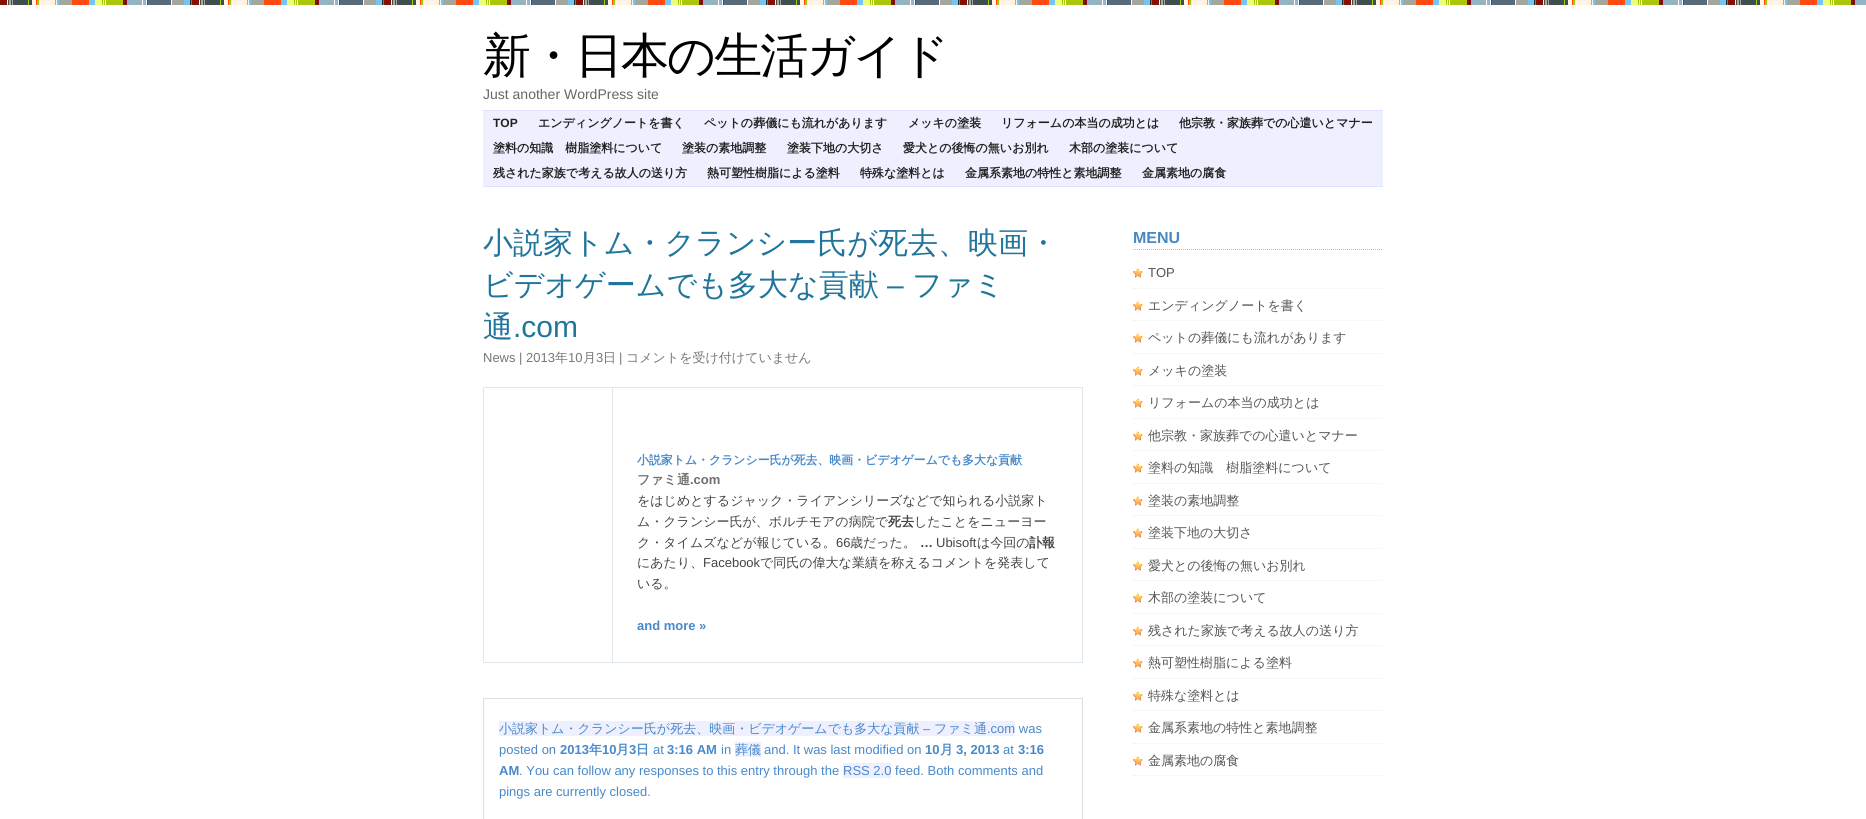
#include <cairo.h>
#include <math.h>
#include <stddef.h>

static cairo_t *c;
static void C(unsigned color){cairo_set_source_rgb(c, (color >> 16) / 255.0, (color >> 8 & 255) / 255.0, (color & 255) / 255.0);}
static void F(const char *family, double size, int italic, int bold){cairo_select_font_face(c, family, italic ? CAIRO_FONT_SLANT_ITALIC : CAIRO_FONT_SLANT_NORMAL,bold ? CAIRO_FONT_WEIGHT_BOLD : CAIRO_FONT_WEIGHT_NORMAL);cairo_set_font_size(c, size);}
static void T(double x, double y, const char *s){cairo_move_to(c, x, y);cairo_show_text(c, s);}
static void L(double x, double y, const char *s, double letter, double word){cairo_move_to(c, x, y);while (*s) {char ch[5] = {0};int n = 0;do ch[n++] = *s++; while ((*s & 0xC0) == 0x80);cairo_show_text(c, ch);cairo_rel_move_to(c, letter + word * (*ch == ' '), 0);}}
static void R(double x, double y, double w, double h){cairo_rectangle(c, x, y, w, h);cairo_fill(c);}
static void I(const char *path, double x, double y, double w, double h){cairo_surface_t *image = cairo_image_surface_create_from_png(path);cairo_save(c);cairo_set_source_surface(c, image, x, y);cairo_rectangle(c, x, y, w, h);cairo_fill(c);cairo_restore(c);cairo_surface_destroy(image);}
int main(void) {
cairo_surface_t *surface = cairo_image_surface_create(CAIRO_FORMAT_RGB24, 1866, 819);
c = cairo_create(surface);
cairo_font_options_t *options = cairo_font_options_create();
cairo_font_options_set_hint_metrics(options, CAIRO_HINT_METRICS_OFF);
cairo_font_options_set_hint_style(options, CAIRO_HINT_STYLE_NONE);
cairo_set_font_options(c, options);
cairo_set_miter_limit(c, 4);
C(0xffffff);
cairo_paint(c);
I("1.png",0,0,1866,5);
F("WenQuanYi Zen Hei Medium",48,0,0);
C(0x000000);
L(483,72,"新・日本の生活ガイド",-2,0);
F("Liberation Sans",14,0,0);
C(0x666666);
T(483,99,"Just another WordPress site");
C(0xeff0ff);
R(483,111,900,75);
C(0xdfe2ff);
R(483,110,900,1);
R(483,186,900,1);
F("Liberation Sans",12,0,1);
C(0x222222);
T(493,127,"TOP");
F("WenQuanYi Zen Hei",12,0,1);
T(538,127,"エンディングノートを書く");
T(704,127,"ペットの葬儀にも流れがあります");
T(908,127,"メッキの塗装");
T(1001,127,"リフォームの本当の成功とは");
T(1179,127,"他宗教・家族葬での心遣いとマナー");
T(493,152,"塗料の知識　樹脂塗料について");
T(682,152,"塗装の素地調整");
T(787,152,"塗装下地の大切さ");
T(903,152,"愛犬との後悔の無いお別れ");
T(1069,152,"木部の塗装について");
T(493,177,"残された家族で考える故人の送り方");
T(707,177,"熱可塑性樹脂による塗料");
T(860,177,"特殊な塗料とは");
T(965,177,"金属系素地の特性と素地調整");
T(1142,177,"金属素地の腐食");
F("WenQuanYi Zen Hei Medium",30,0,0);
C(0x21759b);
T(483,253,"小説家トム・クランシー氏が死去、映画・");
T(483,295,"ビデオゲームでも多大な貢献");
F("Liberation Sans",30,0,0);
T(887,295,"–");
F("WenQuanYi Zen Hei Medium",30,0,0);
T(912,295,"ファミ");
T(483,337,"通");
F("Liberation Sans",30,0,0);
T(513,337,".com");
F("Liberation Sans",13,0,0);
C(0x777777);
T(483,362,"News | 2013");
F("WenQuanYi Zen Hei Medium",13,0,0);
T(555,362,"年");
F("Liberation Sans",13,0,0);
T(568,362,"10");
F("WenQuanYi Zen Hei Medium",13,0,0);
T(583,362,"月");
F("Liberation Sans",13,0,0);
T(596,362,"3");
F("WenQuanYi Zen Hei Medium",13,0,0);
T(603,362,"日");
F("Liberation Sans",13,0,0);
T(619,362,"|");
F("WenQuanYi Zen Hei Medium",13,0,0);
T(626,362,"コメントを受け付けていません");
C(0xe0e8ef);
R(483,387,600,1);
R(483,387,1,276);
R(1082,387,1,276);
R(612,662,471,1);
R(612,387,1,276);
R(483,662,130,1);
F("WenQuanYi Zen Hei",11.9,0,1);
C(0x4789ca);
T(637,464,"小説家トム・クランシー氏が死去、映画・ビデオゲームでも多大な貢献");
F("WenQuanYi Zen Hei",13,0,1);
C(0x6f6f6f);
T(637,484,"ファミ通");
F("Liberation Sans",13,0,1);
T(690,484,".com");
F("WenQuanYi Zen Hei Medium",13,0,0);
C(0x444444);
T(637,505,"をはじめとするジャック・ライアンシリーズなどで知られる小説家ト");
T(637,526,"ム・クランシー氏が、ボルチモアの病院で");
F("WenQuanYi Zen Hei",13,0,1);
T(888,526,"死去");
F("WenQuanYi Zen Hei Medium",13,0,0);
T(914,526,"したことをニューヨー");
T(637,547,"ク・タイムズなどが報じている。");
F("Liberation Sans",13,0,0);
T(836,547,"66");
F("WenQuanYi Zen Hei Medium",13,0,0);
T(850,547,"歳だった。");
F("Liberation Sans",13,0,1);
T(920,547,"…");
F("Liberation Sans",13,0,0);
T(936,547,"Ubisoft");
F("WenQuanYi Zen Hei Medium",13,0,0);
T(977,547,"は今回の");
F("WenQuanYi Zen Hei",13,0,1);
T(1029,547,"訃報");
F("WenQuanYi Zen Hei Medium",13,0,0);
T(637,567,"にあたり、");
F("Liberation Sans",13,0,0);
T(703,567,"Facebook");
F("WenQuanYi Zen Hei Medium",13,0,0);
T(760,567,"で同氏の偉大な業績を称えるコメントを発表して");
T(637,588,"いる。");
F("Liberation Sans",13,0,1);
C(0x4789ca);
T(637,630,"and more »");
cairo_rectangle(c,483.5,698.5,599,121);
C(0xdedede);
cairo_set_line_width(c,1);
cairo_stroke(c);
C(0xeff0ff);
R(499,721,516,15);
F("WenQuanYi Zen Hei Medium",13,0,0);
C(0x4789ca);
T(499,733,"小説家トム・クランシー氏が死去、映画・ビデオゲームでも多大な貢献");
F("Liberation Sans",13,0,0);
T(923,733,"–");
F("WenQuanYi Zen Hei Medium",13,0,0);
T(934,733,"ファミ通");
F("Liberation Sans",13,0,0);
T(987,733,".com was");
T(499,754,"posted on");
F("Liberation Sans",13,0,1);
T(560,754,"2013");
F("WenQuanYi Zen Hei",13,0,1);
T(589,754,"年");
F("Liberation Sans",13,0,1);
T(602,754,"10");
F("WenQuanYi Zen Hei",13,0,1);
T(616,754,"月");
F("Liberation Sans",13,0,1);
T(629,754,"3");
F("WenQuanYi Zen Hei",13,0,1);
T(636,754,"日");
F("Liberation Sans",13,0,0);
T(653,754,"at");
F("Liberation Sans",13,0,1);
T(667,754,"3:16 AM");
F("Liberation Sans",13,0,0);
T(721,754,"in");
C(0xeff0ff);
R(735,742,26,15);
F("WenQuanYi Zen Hei Medium",13,0,0);
C(0x4789ca);
T(735,754,"葬儀");
F("Liberation Sans",13,0,0);
T(764,754,"and. It was last modified on");
F("Liberation Sans",13,0,1);
T(925,754,"10");
F("WenQuanYi Zen Hei",13,0,1);
T(940,754,"月");
F("Liberation Sans",13,0,1);
T(956,754,"3, 2013");
F("Liberation Sans",13,0,0);
T(1003,754,"at");
F("Liberation Sans",13,0,1);
T(1018,754,"3:16");
T(499,775,"AM");
F("Liberation Sans",13,0,0);
T(519,775,". You can follow any responses to this entry through the");
C(0xeff0ff);
R(843,763,48,15);
C(0x4789ca);
T(843,775,"RSS 2.0 feed. Both comments and");
T(499,796,"pings are currently closed.");
cairo_new_path(c);
cairo_move_to(c,1133,249.5);
cairo_line_to(c,1383,249.5);
C(0xafb7ff);
cairo_set_dash(c,(double[]){1,1},2,0);
cairo_stroke(c);
F("Liberation Sans",16,0,1);
C(0x4789bf);
T(1133,243,"MENU");
I("2.png",1133,268,10,10);
cairo_new_path(c);
cairo_move_to(c,1133,288.5);
cairo_line_to(c,1383,288.5);
C(0xeeeeee);
cairo_stroke(c);
F("Liberation Sans",13,0,0);
C(0x555555);
T(1148,277,"TOP");
I("2.png",1133,301,10,10);
cairo_new_path(c);
cairo_move_to(c,1133,320.5);
cairo_line_to(c,1383,320.5);
C(0xeeeeee);
cairo_stroke(c);
F("WenQuanYi Zen Hei Medium",13,0,0);
C(0x555555);
T(1148,310,"エンディングノートを書く");
I("2.png",1133,333,10,10);
cairo_new_path(c);
cairo_move_to(c,1133,353.5);
cairo_line_to(c,1383,353.5);
C(0xeeeeee);
cairo_stroke(c);
C(0x555555);
T(1148,342,"ペットの葬儀にも流れがあります");
I("2.png",1133,366,10,10);
cairo_new_path(c);
cairo_move_to(c,1133,385.5);
cairo_line_to(c,1383,385.5);
C(0xeeeeee);
cairo_stroke(c);
C(0x555555);
T(1148,375,"メッキの塗装");
I("2.png",1133,398,10,10);
cairo_new_path(c);
cairo_move_to(c,1133,418.5);
cairo_line_to(c,1383,418.5);
C(0xeeeeee);
cairo_stroke(c);
C(0x555555);
T(1148,407,"リフォームの本当の成功とは");
I("2.png",1133,431,10,10);
cairo_new_path(c);
cairo_move_to(c,1133,450.5);
cairo_line_to(c,1383,450.5);
C(0xeeeeee);
cairo_stroke(c);
C(0x555555);
T(1148,440,"他宗教・家族葬での心遣いとマナー");
I("2.png",1133,463,10,10);
cairo_new_path(c);
cairo_move_to(c,1133,483.5);
cairo_line_to(c,1383,483.5);
C(0xeeeeee);
cairo_stroke(c);
C(0x555555);
T(1148,472,"塗料の知識　樹脂塗料について");
I("2.png",1133,496,10,10);
cairo_new_path(c);
cairo_move_to(c,1133,515.5);
cairo_line_to(c,1383,515.5);
C(0xeeeeee);
cairo_stroke(c);
C(0x555555);
T(1148,505,"塗装の素地調整");
I("2.png",1133,528,10,10);
cairo_new_path(c);
cairo_move_to(c,1133,548.5);
cairo_line_to(c,1383,548.5);
C(0xeeeeee);
cairo_stroke(c);
C(0x555555);
T(1148,537,"塗装下地の大切さ");
I("2.png",1133,561,10,10);
cairo_new_path(c);
cairo_move_to(c,1133,580.5);
cairo_line_to(c,1383,580.5);
C(0xeeeeee);
cairo_stroke(c);
C(0x555555);
T(1148,570,"愛犬との後悔の無いお別れ");
I("2.png",1133,593,10,10);
cairo_new_path(c);
cairo_move_to(c,1133,613.5);
cairo_line_to(c,1383,613.5);
C(0xeeeeee);
cairo_stroke(c);
C(0x555555);
T(1148,602,"木部の塗装について");
I("2.png",1133,626,10,10);
cairo_new_path(c);
cairo_move_to(c,1133,645.5);
cairo_line_to(c,1383,645.5);
C(0xeeeeee);
cairo_stroke(c);
C(0x555555);
T(1148,635,"残された家族で考える故人の送り方");
I("2.png",1133,658,10,10);
cairo_new_path(c);
cairo_move_to(c,1133,678.5);
cairo_line_to(c,1383,678.5);
C(0xeeeeee);
cairo_stroke(c);
C(0x555555);
T(1148,667,"熱可塑性樹脂による塗料");
I("2.png",1133,691,10,10);
cairo_new_path(c);
cairo_move_to(c,1133,710.5);
cairo_line_to(c,1383,710.5);
C(0xeeeeee);
cairo_stroke(c);
C(0x555555);
T(1148,700,"特殊な塗料とは");
I("2.png",1133,723,10,10);
cairo_new_path(c);
cairo_move_to(c,1133,743.5);
cairo_line_to(c,1383,743.5);
C(0xeeeeee);
cairo_stroke(c);
C(0x555555);
T(1148,732,"金属系素地の特性と素地調整");
I("2.png",1133,756,10,10);
cairo_new_path(c);
cairo_move_to(c,1133,775.5);
cairo_line_to(c,1383,775.5);
C(0xeeeeee);
cairo_stroke(c);
C(0x555555);
T(1148,765,"金属素地の腐食");
cairo_surface_write_to_png(surface, "o.png");
cairo_font_options_destroy(options);
cairo_destroy(c);
cairo_surface_destroy(surface);
return 0;
}
